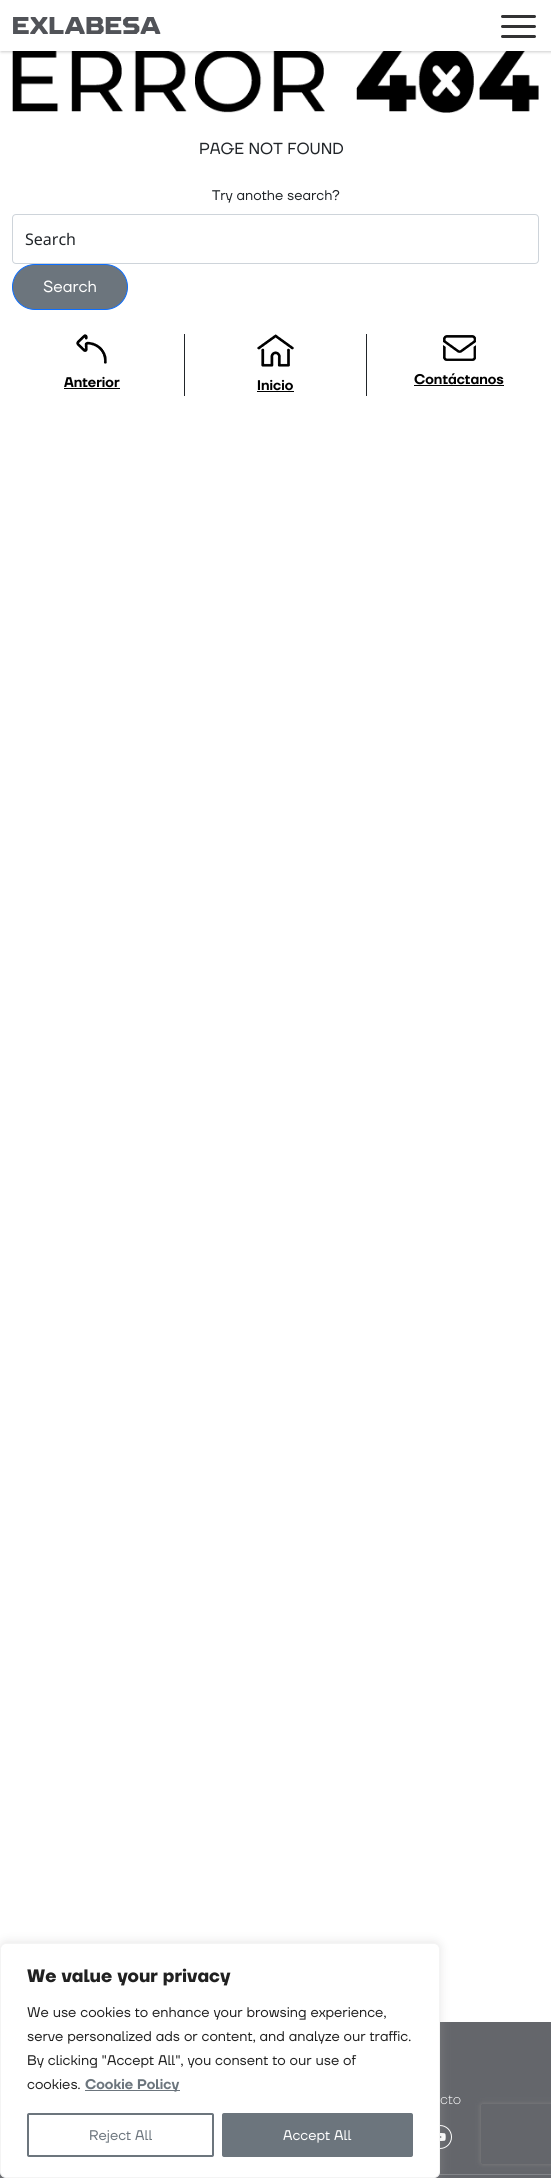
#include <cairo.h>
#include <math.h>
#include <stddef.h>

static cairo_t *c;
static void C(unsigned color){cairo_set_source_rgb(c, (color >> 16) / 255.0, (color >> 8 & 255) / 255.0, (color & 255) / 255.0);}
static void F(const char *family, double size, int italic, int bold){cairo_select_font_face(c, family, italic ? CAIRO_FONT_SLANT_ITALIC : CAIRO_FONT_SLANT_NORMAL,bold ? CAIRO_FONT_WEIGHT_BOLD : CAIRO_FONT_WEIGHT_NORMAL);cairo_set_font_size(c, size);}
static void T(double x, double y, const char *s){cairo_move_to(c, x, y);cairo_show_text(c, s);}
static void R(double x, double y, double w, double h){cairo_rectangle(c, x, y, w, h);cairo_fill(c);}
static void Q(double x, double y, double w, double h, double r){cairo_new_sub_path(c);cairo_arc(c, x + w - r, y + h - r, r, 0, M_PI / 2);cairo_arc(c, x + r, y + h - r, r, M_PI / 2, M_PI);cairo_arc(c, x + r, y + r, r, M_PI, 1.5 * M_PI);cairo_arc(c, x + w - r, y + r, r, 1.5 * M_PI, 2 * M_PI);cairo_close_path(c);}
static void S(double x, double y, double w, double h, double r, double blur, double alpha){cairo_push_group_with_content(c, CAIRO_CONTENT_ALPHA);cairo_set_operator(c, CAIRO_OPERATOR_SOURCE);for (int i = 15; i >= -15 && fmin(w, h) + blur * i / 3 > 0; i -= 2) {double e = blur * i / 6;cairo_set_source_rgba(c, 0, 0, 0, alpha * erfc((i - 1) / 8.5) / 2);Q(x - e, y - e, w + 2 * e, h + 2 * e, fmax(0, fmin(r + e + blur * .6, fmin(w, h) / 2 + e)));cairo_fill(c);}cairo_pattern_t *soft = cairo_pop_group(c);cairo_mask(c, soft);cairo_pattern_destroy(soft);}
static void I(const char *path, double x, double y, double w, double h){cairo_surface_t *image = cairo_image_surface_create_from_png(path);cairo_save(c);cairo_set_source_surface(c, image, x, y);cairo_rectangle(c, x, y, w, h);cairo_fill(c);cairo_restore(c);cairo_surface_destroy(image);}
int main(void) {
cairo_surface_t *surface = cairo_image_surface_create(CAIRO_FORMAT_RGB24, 551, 2178);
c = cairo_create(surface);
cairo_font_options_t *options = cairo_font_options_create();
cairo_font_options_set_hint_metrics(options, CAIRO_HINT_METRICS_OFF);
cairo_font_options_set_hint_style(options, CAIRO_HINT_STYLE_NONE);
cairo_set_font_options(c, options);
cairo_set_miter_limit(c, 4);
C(0xffffff);
cairo_paint(c);
I("2.png",12,51,527,62);
C(0x000000);
S(1,1,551,51,0,1.5,.2);
C(0xffffff);
R(0,0,551,51);
I("1.png",13,17,148,17);
C(0x323233);
Q(501,15,35,3,1.5);
cairo_fill(c);
Q(501,25,35,3,1.5);
cairo_fill(c);
Q(501,35,35,3,1.5);
cairo_fill(c);
F("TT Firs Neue",16,0,0);
C(0x212529);
T(199,154,"PAGE NOT FOUND");
F("TT Firs Neue",14,0,0);
T(212,200,"Try anothe search?");
Q(12.5,214.5,526,49,3.5);
C(0xced4da);
cairo_set_line_width(c,1);
cairo_stroke(c);
F("Noto Sans",16,0,0);
C(0x212529);
T(25,245,"Search");
C(0x6c757d);
Q(12.5,264.5,115,45,22.5);
cairo_fill_preserve(c);
C(0x0d6efd);
cairo_stroke(c);
F("TT Firs Neue",16,0,0);
C(0xffffff);
T(43,292,"Search");
I("3.png",76,334,31,30);
F("TT Firs Neue SemiBold",14,0,0);
C(0x000000);
T(64,387,"Anterior");
R(64,388,56,1);
C(0x212529);
R(366,334,1,62);
R(184,334,1,62);
I("4.png",257,334,37,33);
C(0x000000);
T(257,390,"Inicio");
R(257,391,37,1);
I("5.png",443,335,33,26);
T(414,384,"Contáctanos");
R(414,385,90,1);
C(0x64666b);
R(0,2022,551,152);
cairo_new_path(c);
cairo_arc(c,440,2137,11.5,0,2 * M_PI);
C(0xffffff);
cairo_stroke(c);
I("6.png",440,2133,6,8);
C(0x64666b);
R(0,2175,551,3);
C(0x838589);
R(0,2174,551,1);
C(0xacabab);
S(0,1942,440,235,6,5,.3);
C(0xffffff);
Q(.5,1943.5,439,234,5.5);
cairo_fill_preserve(c);
C(0xf4f4f4);
cairo_stroke(c);
F("TT Firs Neue",18,0,1);
C(0x212121);
T(27,1982,"We value your privacy");
F("TT Firs Neue",14,0,0);
T(27,2017,"We use cookies to enhance your browsing experience,");
T(27,2041,"serve personalized ads or content, and analyze our traffic.");
T(27,2065,"By clicking \"Accept All\", you consent to our use of");
T(27,2089,"cookies.");
C(0x6c757d);
R(85,2090,95,1);
F("TT Firs Neue SemiBold",14,0,0);
T(85,2089,"Cookie Policy");
Q(28,2114,185,42,1);
cairo_set_line_width(c,2);
cairo_stroke(c);
F("TT Firs Neue",14,0,0);
T(89,2140,"Reject All");
Q(223,2114,189,42,1);
cairo_fill_preserve(c);
cairo_stroke(c);
C(0xffffff);
T(283,2140,"Accept All");
F("TT Firs Neue ExtraLight",14,0,0);
T(440,2104,"cto");
cairo_save(c);
cairo_set_fill_rule(c,CAIRO_FILL_RULE_EVEN_ODD);
cairo_new_path(c);
cairo_move_to(c,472,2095);
cairo_line_to(c,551,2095);
cairo_line_to(c,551,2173);
cairo_line_to(c,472,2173);
cairo_close_path(c);
cairo_move_to(c,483,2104);
cairo_line_to(c,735,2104);
cairo_curve_to(c,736,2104,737,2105,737,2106);
cairo_line_to(c,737,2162);
cairo_curve_to(c,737,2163,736,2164,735,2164);
cairo_line_to(c,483,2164);
cairo_curve_to(c,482,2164,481,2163,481,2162);
cairo_line_to(c,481,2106);
cairo_curve_to(c,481,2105,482,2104,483,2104);
cairo_close_path(c);
cairo_clip(c);
C(0x808080);
S(481,2104,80,60,2,2.5,1);
cairo_restore(c);
cairo_surface_write_to_png(surface, "o.png");
cairo_font_options_destroy(options);
cairo_destroy(c);
cairo_surface_destroy(surface);
return 0;
}
